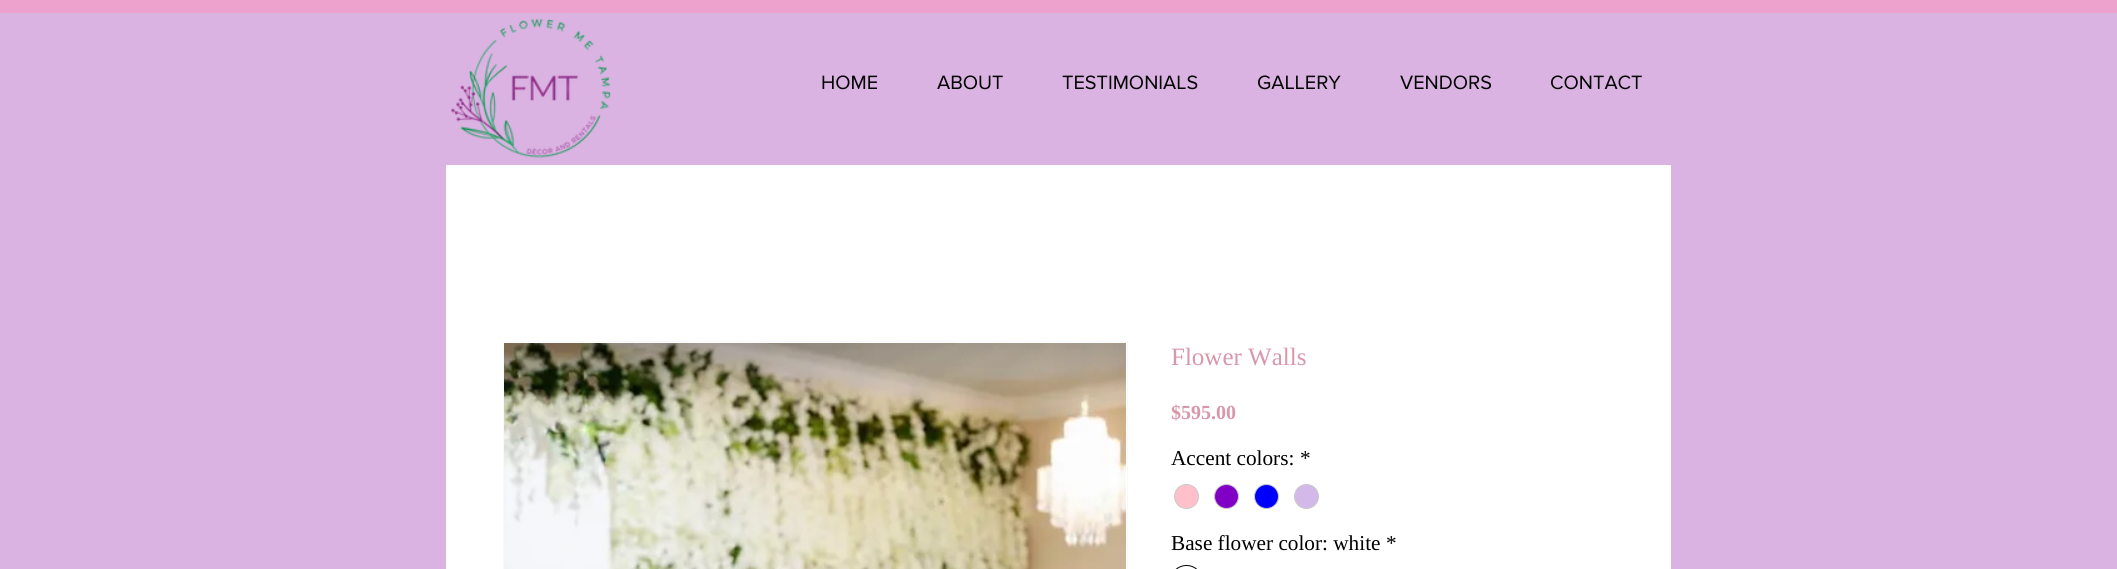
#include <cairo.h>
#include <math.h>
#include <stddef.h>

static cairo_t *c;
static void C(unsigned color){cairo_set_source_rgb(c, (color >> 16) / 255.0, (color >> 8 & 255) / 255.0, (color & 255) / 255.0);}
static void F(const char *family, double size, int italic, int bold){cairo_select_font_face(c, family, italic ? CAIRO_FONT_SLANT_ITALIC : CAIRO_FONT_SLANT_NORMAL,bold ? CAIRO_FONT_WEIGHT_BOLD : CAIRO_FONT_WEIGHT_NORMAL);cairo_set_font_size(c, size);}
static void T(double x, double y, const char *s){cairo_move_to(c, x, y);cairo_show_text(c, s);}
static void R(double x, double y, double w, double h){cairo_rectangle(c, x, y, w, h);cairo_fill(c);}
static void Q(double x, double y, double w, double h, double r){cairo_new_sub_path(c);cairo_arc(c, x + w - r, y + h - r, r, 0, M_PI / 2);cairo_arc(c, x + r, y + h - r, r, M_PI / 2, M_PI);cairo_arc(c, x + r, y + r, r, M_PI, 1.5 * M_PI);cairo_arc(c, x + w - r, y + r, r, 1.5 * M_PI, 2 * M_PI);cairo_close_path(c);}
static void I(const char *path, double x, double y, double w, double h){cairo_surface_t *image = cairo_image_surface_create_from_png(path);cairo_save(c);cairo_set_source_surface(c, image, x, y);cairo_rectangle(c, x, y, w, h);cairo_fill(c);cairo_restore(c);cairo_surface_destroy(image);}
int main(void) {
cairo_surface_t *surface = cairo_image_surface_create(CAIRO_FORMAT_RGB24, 2117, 569);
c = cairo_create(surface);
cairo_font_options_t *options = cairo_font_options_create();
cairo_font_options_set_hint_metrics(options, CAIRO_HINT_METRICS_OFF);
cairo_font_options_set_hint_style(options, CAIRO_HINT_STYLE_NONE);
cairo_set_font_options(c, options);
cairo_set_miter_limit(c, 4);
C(0xdbb3e3);
cairo_paint(c);
C(0xeca2cc);
R(0,0,2117,13);
I("1.png",451,18,160,140);
F("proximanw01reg",20,0,0);
C(0x000000);
T(821,89,"HOME");
T(937,89,"ABOUT");
T(1062,89,"TESTIMONIALS");
T(1257,89,"GALLERY");
T(1400,89,"VENDORS");
T(1550,89,"CONTACT");
C(0xffffff);
R(446,165,1225,404);
cairo_rectangle(c,503.5,341.5,624,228);
C(0xf9f9f9);
cairo_set_line_width(c,1);
cairo_stroke(c);
I("2.png",504,343,622,226);
F("Liberation Serif",25,0,0);
C(0xd997ab);
T(1171,365,"Flower Walls");
F("Liberation Serif",20,0,1);
T(1171,419,"$595.00");
F("Liberation Serif",21.25,0,0);
C(0x000000);
T(1171,465,"Accent colors:");
T(1300,465,"*");
C(0xffc0cb);
cairo_new_path(c);
cairo_arc(c,1186.5,496.5,12,0,2 * M_PI);
cairo_fill_preserve(c);
C(0xc9c9c9);
cairo_stroke(c);
C(0x8000c6);
cairo_arc(c,1226.5,496.5,12,0,2 * M_PI);
cairo_fill_preserve(c);
C(0xc9c9c9);
cairo_stroke(c);
C(0x0000ff);
cairo_arc(c,1266.5,496.5,12,0,2 * M_PI);
cairo_fill_preserve(c);
C(0xc9c9c9);
cairo_stroke(c);
C(0xd3b9e9);
cairo_arc(c,1306.5,496.5,12,0,2 * M_PI);
cairo_fill_preserve(c);
C(0xc9c9c9);
cairo_stroke(c);
C(0x000000);
T(1171,550,"Base flower color: white");
T(1386,550,"*");
Q(1170.5,565.5,32,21,16);
cairo_stroke(c);
cairo_surface_write_to_png(surface, "o.png");
cairo_font_options_destroy(options);
cairo_destroy(c);
cairo_surface_destroy(surface);
return 0;
}
